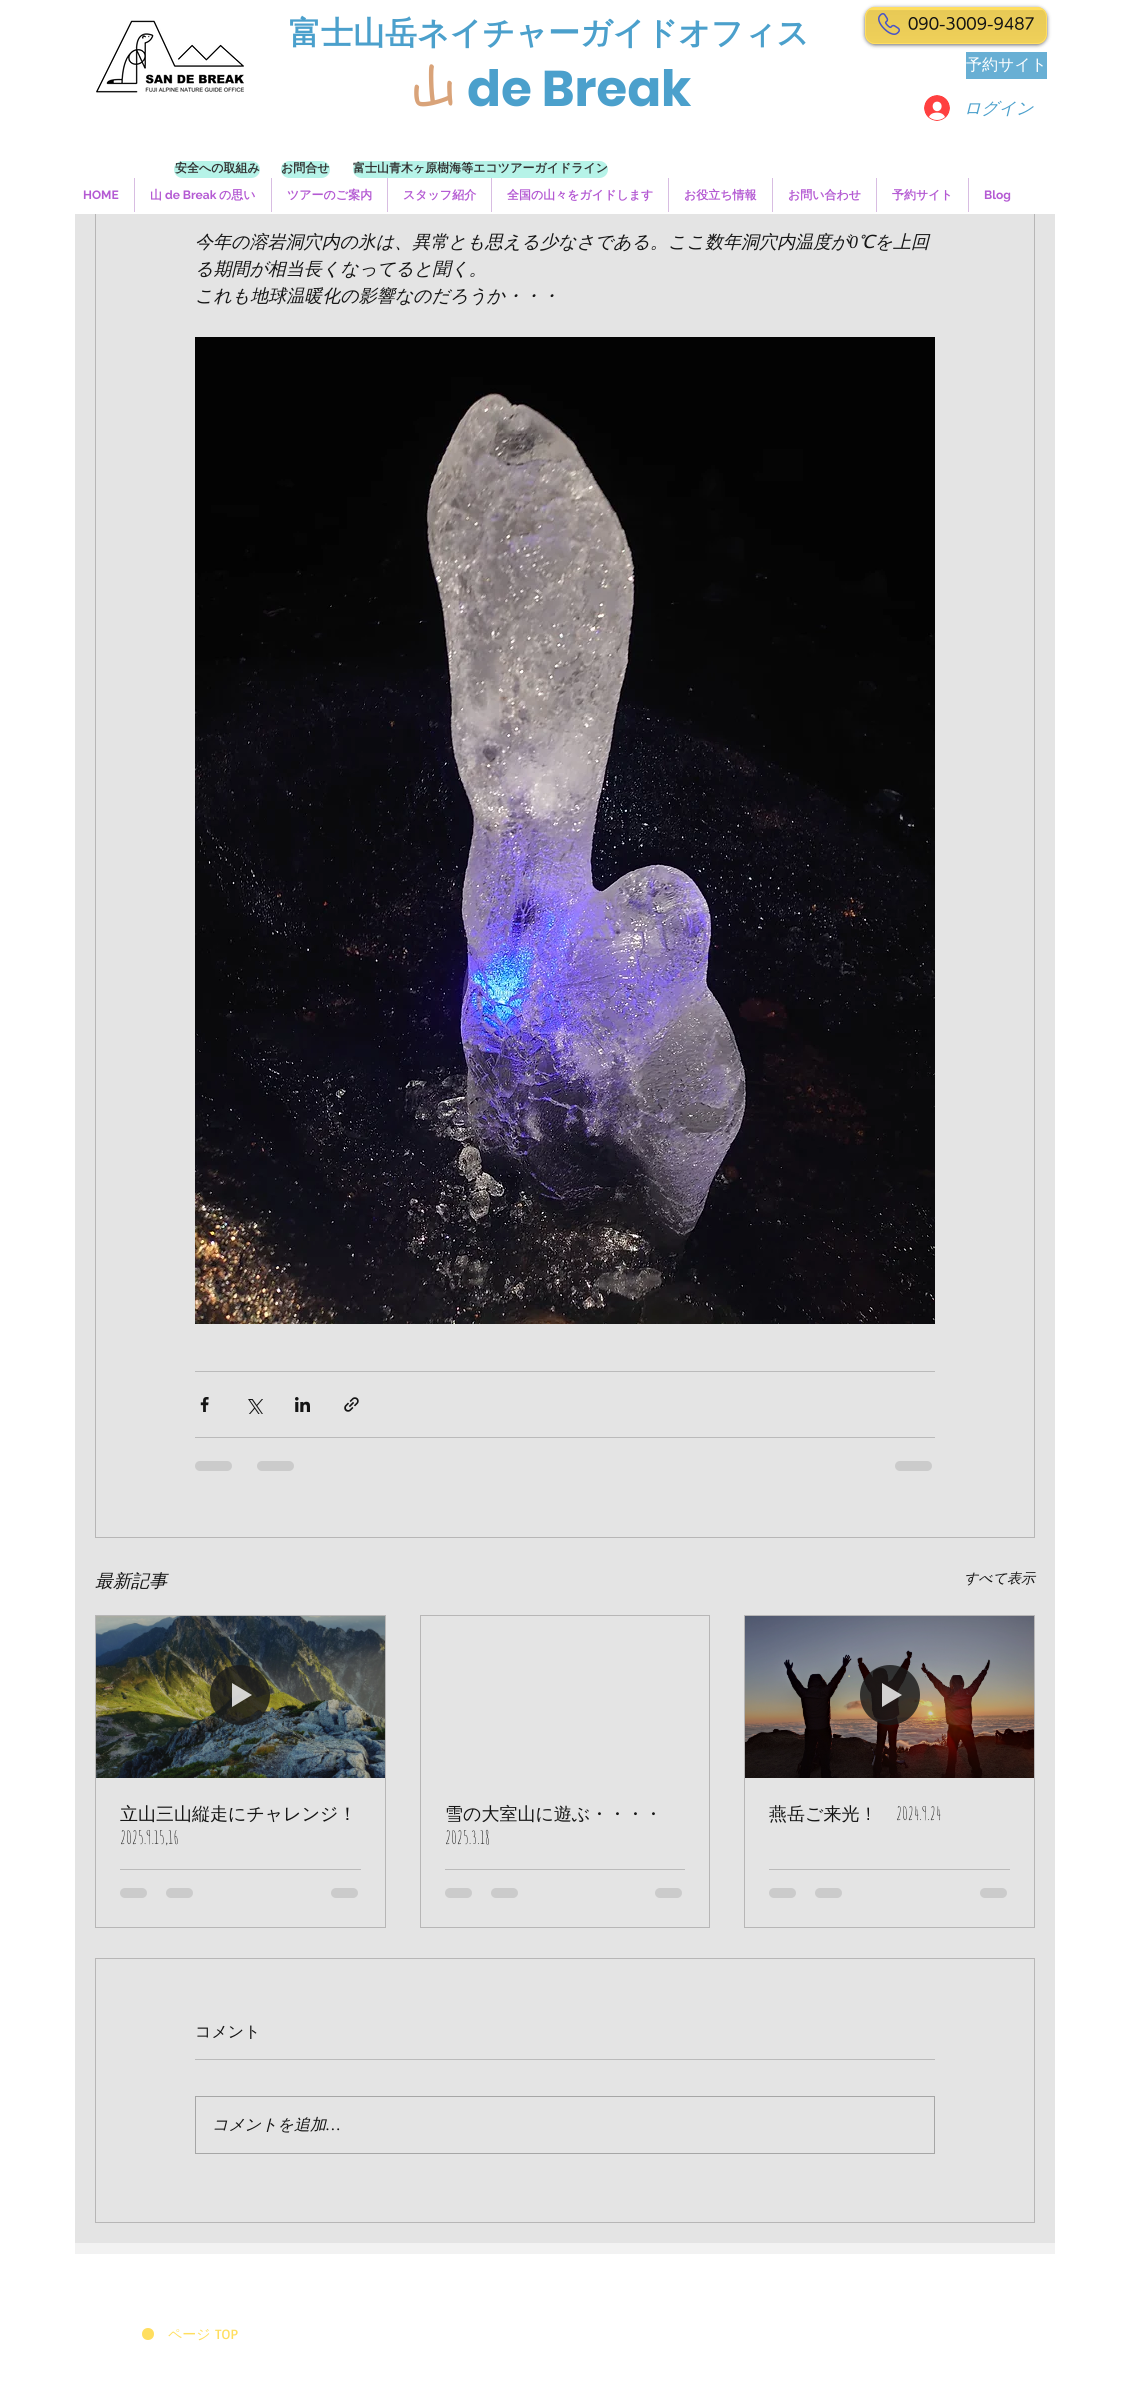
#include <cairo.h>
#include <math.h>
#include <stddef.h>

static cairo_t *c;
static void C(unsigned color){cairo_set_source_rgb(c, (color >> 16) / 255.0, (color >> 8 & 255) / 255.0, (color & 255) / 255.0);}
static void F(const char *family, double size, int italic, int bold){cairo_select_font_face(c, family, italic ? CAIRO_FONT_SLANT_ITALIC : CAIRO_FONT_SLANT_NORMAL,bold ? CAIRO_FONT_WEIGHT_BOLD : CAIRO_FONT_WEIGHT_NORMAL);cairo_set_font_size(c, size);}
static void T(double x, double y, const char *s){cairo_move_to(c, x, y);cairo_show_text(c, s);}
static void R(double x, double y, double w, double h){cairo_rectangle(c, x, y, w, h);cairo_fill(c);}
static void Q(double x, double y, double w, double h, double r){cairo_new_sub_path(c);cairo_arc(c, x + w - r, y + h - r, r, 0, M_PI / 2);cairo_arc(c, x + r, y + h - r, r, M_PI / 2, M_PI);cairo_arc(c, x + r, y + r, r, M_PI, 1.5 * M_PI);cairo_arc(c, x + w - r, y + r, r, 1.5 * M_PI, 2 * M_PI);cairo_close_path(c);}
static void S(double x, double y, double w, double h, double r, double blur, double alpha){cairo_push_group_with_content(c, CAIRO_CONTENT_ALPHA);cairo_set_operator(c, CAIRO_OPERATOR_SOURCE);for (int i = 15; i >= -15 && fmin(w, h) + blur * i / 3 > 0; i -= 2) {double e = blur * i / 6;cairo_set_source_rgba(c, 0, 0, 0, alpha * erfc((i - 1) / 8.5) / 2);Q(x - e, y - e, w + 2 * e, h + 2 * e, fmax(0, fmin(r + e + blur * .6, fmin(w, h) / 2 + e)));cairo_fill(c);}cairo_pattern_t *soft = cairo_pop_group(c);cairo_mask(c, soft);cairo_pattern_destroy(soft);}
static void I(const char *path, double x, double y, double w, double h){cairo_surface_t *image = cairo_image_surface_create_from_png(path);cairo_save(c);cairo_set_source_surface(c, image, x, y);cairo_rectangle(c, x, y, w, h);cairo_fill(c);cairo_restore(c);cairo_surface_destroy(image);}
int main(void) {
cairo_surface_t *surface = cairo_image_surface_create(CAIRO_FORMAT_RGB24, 1130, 2384);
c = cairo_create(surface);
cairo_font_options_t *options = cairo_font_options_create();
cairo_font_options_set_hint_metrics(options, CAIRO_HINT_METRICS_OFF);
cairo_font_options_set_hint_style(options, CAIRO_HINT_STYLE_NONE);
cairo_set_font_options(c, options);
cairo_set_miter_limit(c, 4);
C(0xffffff);
cairo_paint(c);
C(0xe4e4e4);
R(75,214,980,2029);
cairo_rectangle(c,95.5,42.5,939,1495);
C(0xb7b6b6);
cairo_set_line_width(c,1);
cairo_stroke(c);
C(0xffffff);
R(95,42,940,172);
I("1.png",96,20,148,73);
F("WenQuanYi Zen Hei",32,0,1);
C(0x4ba0cc);
T(289,44,"富士山岳ネイチャーガイドオフィス");
F("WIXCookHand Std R",50,0,1);
C(0xd9a379);
T(407,106,"山");
F("Poppins",50,0,1);
C(0x4ba0cc);
T(467,106,"de Break");
C(0x000000);
S(865,8,182,37,10,2,.6);
C(0xffde5f);
Q(865,7,182,37,10);
cairo_fill(c);
I("2.png",865,10,182,34);
Q(865.5,7.5,181,36,9.5);
cairo_stroke(c);
I("3.png",878,13,22,22);
F("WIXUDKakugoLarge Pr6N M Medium",15,0,0);
C(0x141414);
T(908,29,"090-3009-9487");
C(0x68afd4);
R(966,52,81,27);
F("WenQuanYi Zen Hei Medium",16,0,0);
C(0xffffff);
T(966,70,"予約サイト");
I("4.png",924,95,26,26);
F("WenQuanYi Zen Hei Medium",17,1,0);
C(0x4ba0cc);
T(964,114,"ログイン");
C(0xb6f3e8);
Q(174,161,86,17,8.5);
cairo_fill(c);
F("WenQuanYi Zen Hei",12,0,1);
C(0x323232);
T(175,172,"安全への取組み");
C(0xb6f3e8);
Q(281,161,49,17,8.5);
cairo_fill(c);
C(0x323232);
T(281,172,"お問合せ");
C(0xb6f3e8);
Q(353,161,255,17,8.5);
cairo_fill(c);
C(0x323232);
T(353,172,"富士山青木ヶ原樹海等エコツアーガイドライン");
F("Raleway",12,0,1);
C(0xb45ad3);
T(83,199,"HOME");
C(0xd8bde2);
R(134,178,1,34);
F("WenQuanYi Zen Hei",12,0,1);
C(0xb45ad3);
T(150,199,"山");
F("Raleway",12,0,1);
T(165,199,"de Break");
F("WenQuanYi Zen Hei",12,0,1);
T(219,199,"の思い");
C(0xd8bde2);
R(271,178,1,34);
C(0xb45ad3);
T(287,199,"ツアーのご案内");
C(0xd8bde2);
R(387,178,1,34);
C(0xb45ad3);
T(403,199,"スタッフ紹介");
C(0xd8bde2);
R(491,178,1,34);
C(0xb45ad3);
T(507,199,"全国の山々をガイドします");
C(0xd8bde2);
R(668,178,1,34);
C(0xb45ad3);
T(684,199,"お役立ち情報");
C(0xd8bde2);
R(772,178,1,34);
C(0xb45ad3);
T(788,199,"お問い合わせ");
C(0xd8bde2);
R(876,178,1,34);
C(0xb45ad3);
T(892,199,"予約サイト");
C(0xd8bde2);
R(968,178,1,34);
F("Raleway",12,0,1);
C(0xb45ad3);
T(984,199,"Blog");
F("WenQuanYi Zen Hei Medium",18,1,0);
C(0x141414);
T(195,248,"今年の溶岩洞穴内の氷は、異常とも思える少なさである。ここ数年洞穴内温度が");
F("Liberation Serif",18,1,0);
T(849,248,"0");
F("WenQuanYi Zen Hei Medium",18,1,0);
T(858,248,"℃を上回");
T(195,275,"る期間が相当長くなってると聞く。");
T(195,302,"これも地球温暖化の影響なのだろうか・・・");
I("5.png",195,337,740,987);
C(0xbababa);
R(195,1371,740,1);
I("6.png",200,1397,9,15);
I("7.png",248,1399,15,15);
I("8.png",295,1397,15,15);
I("9.png",344,1397,15,15);
R(195,1437,740,1);
C(0xcbcbcb);
Q(195,1461,37,10,5);
cairo_fill(c);
Q(257,1461,37,10,5);
cairo_fill(c);
Q(895,1461,37,10,5);
cairo_fill(c);
C(0x141414);
T(95,1587,"最新記事");
F("WenQuanYi Zen Hei Medium",14,1,0);
T(964,1583,"すべて表示");
cairo_rectangle(c,95.5,1615.5,290,312);
C(0xb7b6b6);
cairo_stroke(c);
I("10.png",96,1616,289,162);
cairo_set_source_rgba(c,0.102,0.102,0.102,0.8);
cairo_arc(c,240,1695,30,0,2 * M_PI);
cairo_fill(c);
cairo_set_source_rgba(c,1,1,1,0.8);
cairo_new_path(c);
cairo_move_to(c,232,1683);
cairo_line_to(c,232,1707);
cairo_line_to(c,252,1695);
cairo_close_path(c);
cairo_fill(c);
F("WenQuanYi Zen Hei Medium",18,0,0);
C(0x141414);
T(120,1820,"立山三山縦走にチャレンジ！");
F("Amatic SC",18,0,0);
T(120,1844,"2025.9.15,16");
C(0xbababa);
R(120,1869,241,1);
C(0xcbcbcb);
Q(120,1888,27,10,5);
cairo_fill(c);
Q(166,1888,27,10,5);
cairo_fill(c);
Q(331,1888,27,10,5);
cairo_fill(c);
cairo_rectangle(c,420.5,1615.5,289,312);
C(0xb7b6b6);
cairo_stroke(c);
F("WenQuanYi Zen Hei Medium",18,0,0);
C(0x141414);
T(445,1820,"雪の大室山に遊ぶ・・・・");
F("Amatic SC",18,0,0);
T(445,1844,"2025.3.18");
C(0xbababa);
R(445,1869,240,1);
C(0xcbcbcb);
Q(445,1888,27,10,5);
cairo_fill(c);
Q(491,1888,27,10,5);
cairo_fill(c);
Q(655,1888,27,10,5);
cairo_fill(c);
cairo_rectangle(c,744.5,1615.5,290,312);
C(0xb7b6b6);
cairo_stroke(c);
I("11.png",745,1616,289,162);
cairo_set_source_rgba(c,0.102,0.102,0.102,0.8);
cairo_arc(c,890,1695,30,0,2 * M_PI);
cairo_fill(c);
cairo_set_source_rgba(c,1,1,1,0.8);
cairo_new_path(c);
cairo_move_to(c,882,1683);
cairo_line_to(c,882,1707);
cairo_line_to(c,902,1695);
cairo_close_path(c);
cairo_fill(c);
F("WenQuanYi Zen Hei Medium",18,0,0);
C(0x141414);
T(769,1820,"燕岳ご来光！");
F("Amatic SC",18,0,0);
T(896,1820,"2024.9.24");
C(0xbababa);
R(769,1869,241,1);
C(0xcbcbcb);
Q(769,1888,27,10,5);
cairo_fill(c);
Q(815,1888,27,10,5);
cairo_fill(c);
Q(980,1888,27,10,5);
cairo_fill(c);
cairo_rectangle(c,95.5,1958.5,939,264);
C(0xb7b6b6);
cairo_stroke(c);
F("WenQuanYi Zen Hei Medium",16,0,0);
C(0x141414);
T(195,2037,"コメント");
C(0xbababa);
R(195,2059,740,1);
cairo_rectangle(c,195.5,2096.5,739,57);
C(0xa6a6a6);
cairo_stroke(c);
F("WenQuanYi Zen Hei Medium",16,1,0);
C(0x141414);
T(212,2130,"コメントを追加");
F("Liberation Serif",16,1,0);
T(326,2130,"…");
C(0xf2f2f2);
R(75,2243,980,11);
C(0xffde5f);
cairo_new_path(c);
cairo_arc(c,148,2334,5,0,2 * M_PI);
cairo_fill_preserve(c);
cairo_set_line_width(c,2);
cairo_stroke(c);
F("WenQuanYi Zen Hei Medium",14,0,0);
T(168,2339,"ページ");
F("Basic",14,0,0);
T(215,2339,"TOP");
cairo_surface_write_to_png(surface, "o.png");
cairo_font_options_destroy(options);
cairo_destroy(c);
cairo_surface_destroy(surface);
return 0;
}
